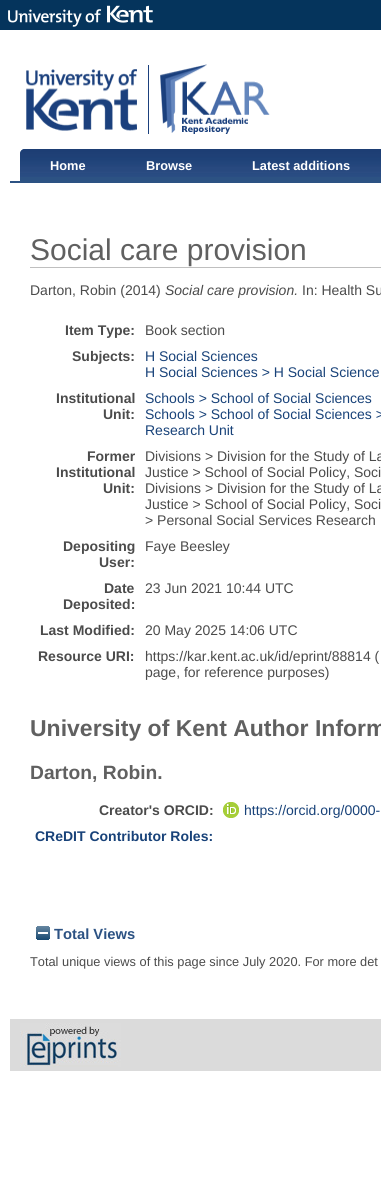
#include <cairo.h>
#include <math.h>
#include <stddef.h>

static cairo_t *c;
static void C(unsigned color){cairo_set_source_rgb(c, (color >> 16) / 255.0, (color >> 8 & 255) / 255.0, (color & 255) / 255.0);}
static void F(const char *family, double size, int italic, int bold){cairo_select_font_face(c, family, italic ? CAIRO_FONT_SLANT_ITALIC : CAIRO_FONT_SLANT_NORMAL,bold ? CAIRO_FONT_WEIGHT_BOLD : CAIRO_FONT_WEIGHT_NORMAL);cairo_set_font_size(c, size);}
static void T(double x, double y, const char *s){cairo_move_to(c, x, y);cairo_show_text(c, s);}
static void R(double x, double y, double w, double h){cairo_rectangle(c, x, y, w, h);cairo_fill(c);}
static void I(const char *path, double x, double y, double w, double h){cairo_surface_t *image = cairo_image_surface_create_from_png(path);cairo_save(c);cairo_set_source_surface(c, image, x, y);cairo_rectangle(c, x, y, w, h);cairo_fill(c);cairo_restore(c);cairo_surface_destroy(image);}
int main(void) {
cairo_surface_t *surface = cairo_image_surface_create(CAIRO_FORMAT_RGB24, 381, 1179);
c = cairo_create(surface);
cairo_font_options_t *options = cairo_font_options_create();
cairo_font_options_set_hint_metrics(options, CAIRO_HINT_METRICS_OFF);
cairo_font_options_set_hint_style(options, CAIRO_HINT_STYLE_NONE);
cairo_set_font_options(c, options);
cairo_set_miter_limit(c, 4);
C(0xffffff);
cairo_paint(c);
C(0x05345c);
R(0,0,381,30);
I("1.png",8,5,145,22);
I("2.png",26,69,111,62);
C(0x1b407d);
R(148,65,1,69);
I("3.png",160,64,110,70);
C(0x2c5283);
R(10,181,371,2);
cairo_new_path(c);
cairo_move_to(c,25,149);
cairo_line_to(c,116,149);
cairo_line_to(c,116,181);
cairo_line_to(c,20,181);
cairo_line_to(c,20,154);
cairo_curve_to(c,20,151,22,149,25,149);
cairo_close_path(c);
cairo_fill(c);
I("4.png",20,149,96,28);
F("Liberation Sans",12.8,0,1);
C(0xffffff);
T(50,170,"Home");
C(0x2c5283);
R(116,177,265,4);
I("5.png",116,149,106,28);
C(0xffffff);
T(146,170,"Browse");
I("6.png",222,149,158,28);
T(252,170,"Latest additions");
I("7.png",380,149,1,28);
C(0xbfbfbf);
R(30,267,351,1);
F("Liberation Sans",30,0,0);
C(0x606060);
T(30,260,"Social care provision");
F("Liberation Sans",14,0,0);
C(0x4b4b4b);
T(30,295,"Darton, Robin (2014)");
F("Liberation Sans",14,1,0);
T(165,295,"Social care provision.");
F("Liberation Sans",14,0,0);
T(302,295,"In: Health Su");
F("Liberation Sans",14,0,1);
T(65,335,"Item Type:");
F("Liberation Sans",14,0,0);
T(145,335,"Book section");
F("Liberation Sans",14,0,1);
T(72,361,"Subjects:");
F("Liberation Sans",14,0,0);
C(0x184279);
T(145,361,"H Social Sciences");
T(145,377,"H Social Sciences > H Social Science");
F("Liberation Sans",14,0,1);
C(0x4b4b4b);
T(56,403,"Institutional");
T(103,419,"Unit:");
F("Liberation Sans",14,0,0);
C(0x184279);
T(145,403,"Schools > School of Social Sciences");
T(145,419,"Schools > School of Social Sciences >");
T(145,435,"Research Unit");
F("Liberation Sans",14,0,1);
C(0x4b4b4b);
T(87,461,"Former");
T(56,477,"Institutional");
T(103,493,"Unit:");
F("Liberation Sans",14,0,0);
T(145,461,"Divisions > Division for the Study of La");
T(145,477,"Justice > School of Social Policy, Soci");
T(145,493,"Divisions > Division for the Study of La");
T(145,509,"Justice > School of Social Policy, Soci");
T(145,525,"> Personal Social Services Research");
F("Liberation Sans",14,0,1);
T(63,551,"Depositing");
T(99,567,"User:");
F("Liberation Sans",14,0,0);
T(145,551,"Faye Beesley");
F("Liberation Sans",14,0,1);
T(104,593,"Date");
T(63,609,"Deposited:");
F("Liberation Sans",14,0,0);
T(145,593,"23 Jun 2021 10:44 UTC");
F("Liberation Sans",14,0,1);
T(40,635,"Last Modified:");
F("Liberation Sans",14,0,0);
T(145,635,"20 May 2025 14:06 UTC");
F("Liberation Sans",14,0,1);
T(38,661,"Resource URI:");
F("Liberation Sans",14,0,0);
T(145,661,"https://kar.kent.ac.uk/id/eprint/88814 (");
T(145,677,"page, for reference purposes)");
F("Liberation Sans",23,0,1);
C(0x606060);
T(30,736,"University of Kent Author Inform");
F("Liberation Sans",19.25,0,1);
T(30,779,"Darton, Robin.");
F("Liberation Sans",14,0,1);
C(0x4b4b4b);
T(99,815,"Creator's ORCID:");
I("8.png",223,802,16,16);
F("Liberation Sans",14,0,0);
C(0x184279);
T(244,815,"https://orcid.org/0000-");
F("Liberation Sans",14,0,1);
T(35,841,"CReDIT Contributor Roles:");
I("9.png",36,926,14,14);
F("Liberation Sans",14.75,0,1);
C(0x2c5283);
T(54,939,"Total Views");
F("Liberation Sans",12.8,0,0);
C(0x4b4b4b);
T(30,966,"Total unique views of this page since July 2020. For more det");
C(0xdbdbdb);
R(10,1019,371,52);
I("10.png",20,1023,101,44);
cairo_surface_write_to_png(surface, "o.png");
cairo_font_options_destroy(options);
cairo_destroy(c);
cairo_surface_destroy(surface);
return 0;
}
